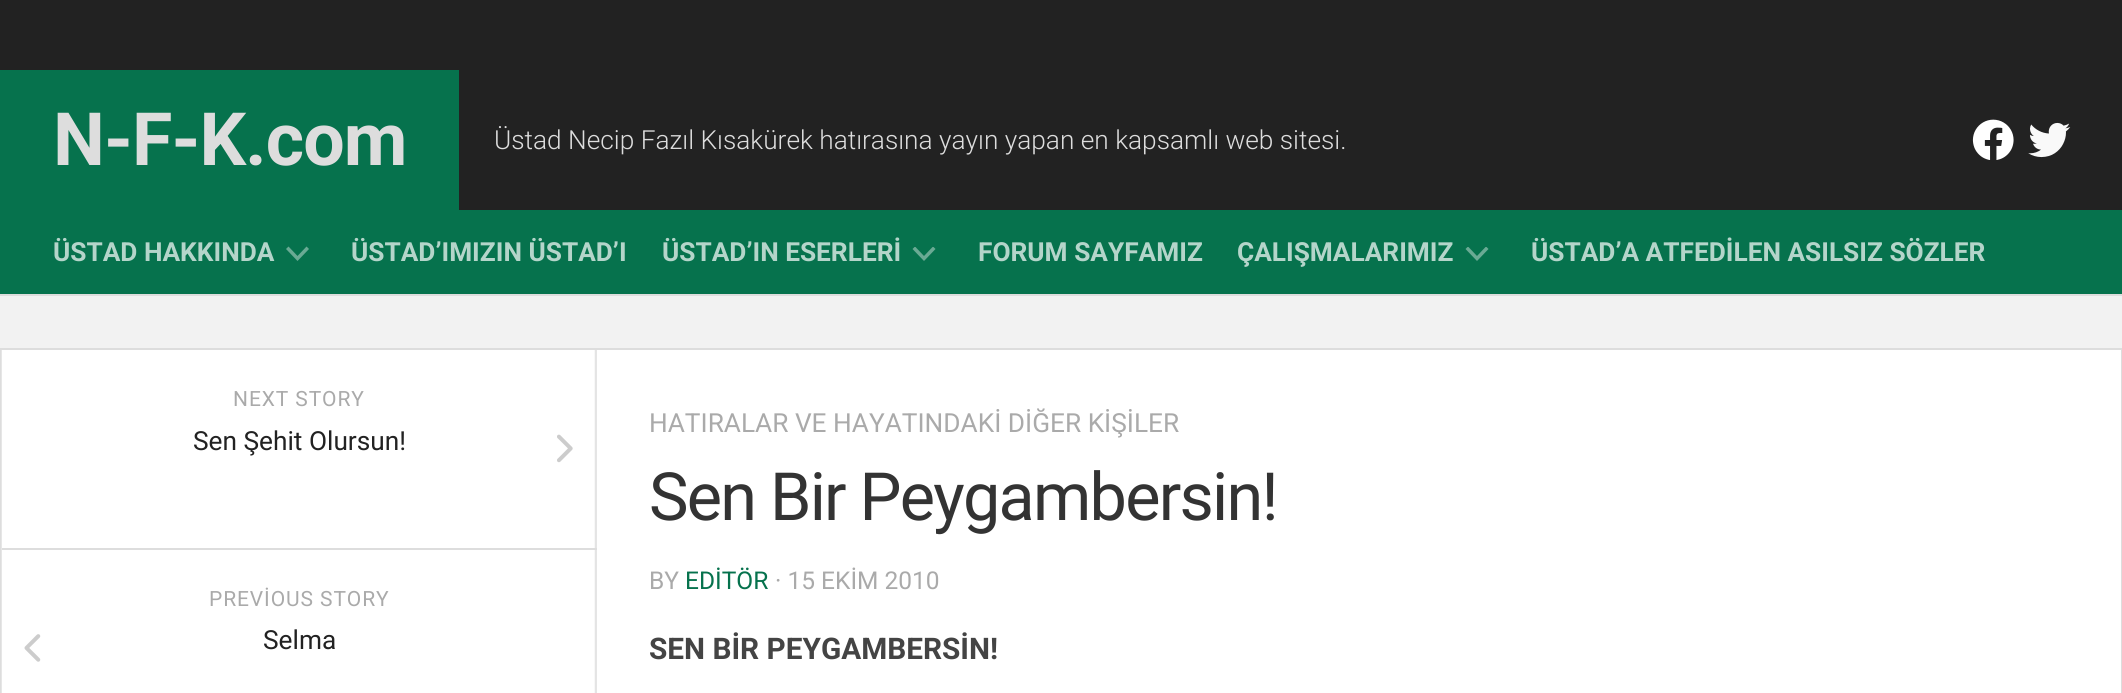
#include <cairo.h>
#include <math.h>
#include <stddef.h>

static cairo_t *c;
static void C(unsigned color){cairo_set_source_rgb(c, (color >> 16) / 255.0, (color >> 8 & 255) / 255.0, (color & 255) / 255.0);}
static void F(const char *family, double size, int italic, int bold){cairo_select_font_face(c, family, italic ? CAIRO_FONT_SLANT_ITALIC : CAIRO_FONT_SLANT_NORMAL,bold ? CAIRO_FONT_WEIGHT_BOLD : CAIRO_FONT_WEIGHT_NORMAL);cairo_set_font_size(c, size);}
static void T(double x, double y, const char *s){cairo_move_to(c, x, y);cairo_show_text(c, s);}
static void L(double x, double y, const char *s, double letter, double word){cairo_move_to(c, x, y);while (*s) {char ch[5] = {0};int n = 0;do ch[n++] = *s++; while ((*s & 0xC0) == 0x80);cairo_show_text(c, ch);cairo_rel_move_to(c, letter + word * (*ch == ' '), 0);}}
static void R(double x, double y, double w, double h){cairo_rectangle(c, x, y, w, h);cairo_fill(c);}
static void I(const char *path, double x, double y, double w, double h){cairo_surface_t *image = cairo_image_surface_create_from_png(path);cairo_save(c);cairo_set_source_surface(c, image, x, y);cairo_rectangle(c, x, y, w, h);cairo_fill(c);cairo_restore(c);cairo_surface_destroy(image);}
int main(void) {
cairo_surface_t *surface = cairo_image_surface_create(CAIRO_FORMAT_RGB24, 2122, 693);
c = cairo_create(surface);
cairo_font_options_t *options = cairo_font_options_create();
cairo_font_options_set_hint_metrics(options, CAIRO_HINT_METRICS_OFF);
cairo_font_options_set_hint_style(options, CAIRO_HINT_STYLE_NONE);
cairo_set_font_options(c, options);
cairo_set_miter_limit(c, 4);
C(0xf2f2f2);
cairo_paint(c);
C(0x222222);
R(0,0,2122,210);
C(0x06724d);
R(0,70,459,140);
F("Roboto",73.5,0,1);
C(0xdddddd);
L(53,165,"N-F-K.com",-.9,0);
F("Roboto Light",26.25,0,0);
T(494,149,"Üstad Necip Fazıl Kısakürek hatırasına yayın yapan en kapsamlı web sitesi.");
I("1.png",1972,119,42,41);
I("2.png",2028,122,43,36);
R(0,294,2122,2);
C(0x06724d);
R(0,210,2122,84);
F("Roboto",26.25,0,1);
C(0xb4d5ca);
T(53,261,"ÜSTAD HAKKINDA");
C(0x6aaa94);
cairo_set_fill_rule(c,CAIRO_FILL_RULE_EVEN_ODD);
cairo_new_path(c);
cairo_move_to(c,297.5,256);
cairo_line_to(c,306.5,246.5);
cairo_line_to(c,309,249);
cairo_line_to(c,297.5,261);
cairo_line_to(c,286,249);
cairo_line_to(c,288.5,246.5);
cairo_close_path(c);
cairo_fill(c);
C(0xb4d5ca);
T(351,261,"ÜSTAD’IMIZIN ÜSTAD’I");
T(662,261,"ÜSTAD’IN ESERLERİ");
cairo_save(c);
cairo_set_fill_rule(c,CAIRO_FILL_RULE_WINDING);
cairo_rectangle(c,912,247,24,14);
cairo_clip(c);
C(0x6aaa94);
cairo_set_fill_rule(c,CAIRO_FILL_RULE_EVEN_ODD);
cairo_new_path(c);
cairo_move_to(c,924,256);
cairo_line_to(c,933,246.5);
cairo_line_to(c,935.5,249);
cairo_line_to(c,924,261);
cairo_line_to(c,912.5,249);
cairo_line_to(c,915,246.5);
cairo_close_path(c);
cairo_fill(c);
cairo_restore(c);
T(978,261,"FORUM SAYFAMIZ");
T(1237,261,"ÇALIŞMALARIMIZ");
cairo_save(c);
cairo_set_fill_rule(c,CAIRO_FILL_RULE_WINDING);
cairo_rectangle(c,1465,247,24,14);
cairo_clip(c);
C(0x6aaa94);
cairo_set_fill_rule(c,CAIRO_FILL_RULE_EVEN_ODD);
cairo_new_path(c);
cairo_move_to(c,1477,256);
cairo_line_to(c,1486,246.5);
cairo_line_to(c,1488.5,249);
cairo_line_to(c,1477,261);
cairo_line_to(c,1465.5,249);
cairo_line_to(c,1468,246.5);
cairo_close_path(c);
cairo_fill(c);
cairo_restore(c);
T(1531,261,"ÜSTAD’A ATFEDİLEN ASILSIZ SÖZLER");
C(0xffffff);
R(596,350,1525,343);
cairo_rectangle(c,1,349,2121,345);
C(0xdddddd);
cairo_stroke(c);
I("3.png",1,350,596,343);
R(2,548,595,2);
F("Roboto",21,0,0);
C(0xaaaaaa);
L(233,406,"NEXT STORY",.9,0);
F("Roboto",26.25,0,0);
C(0x222222);
T(193,450,"Sen Şehit Olursun!");
I("4.png",557,434,16,29);
F("Roboto",21,0,0);
C(0xaaaaaa);
L(209,606,"PREVİOUS STORY",.9,0);
I("5.png",24,634,17,28);
F("Roboto",26.25,0,0);
C(0x222222);
T(263,649,"Selma");
C(0xaaaaaa);
T(649,432,"HATIRALAR VE HAYATINDAKİ DİĞER KİŞİLER");
F("Roboto",66.5,0,0);
C(0x333333);
L(649,520,"Sen Bir Peygambersin!",-1.75,0);
F("Roboto",24.5,0,0);
C(0xaaaaaa);
T(649,589,"BY");
C(0x06724d);
T(685,589,"EDİTÖR");
C(0xaaaaaa);
T(775,589,"· 15 EKİM 2010");
F("Roboto",29.75,0,1);
C(0x444444);
T(649,659,"SEN BİR PEYGAMBERSİN!");
cairo_surface_write_to_png(surface, "o.png");
cairo_font_options_destroy(options);
cairo_destroy(c);
cairo_surface_destroy(surface);
return 0;
}
